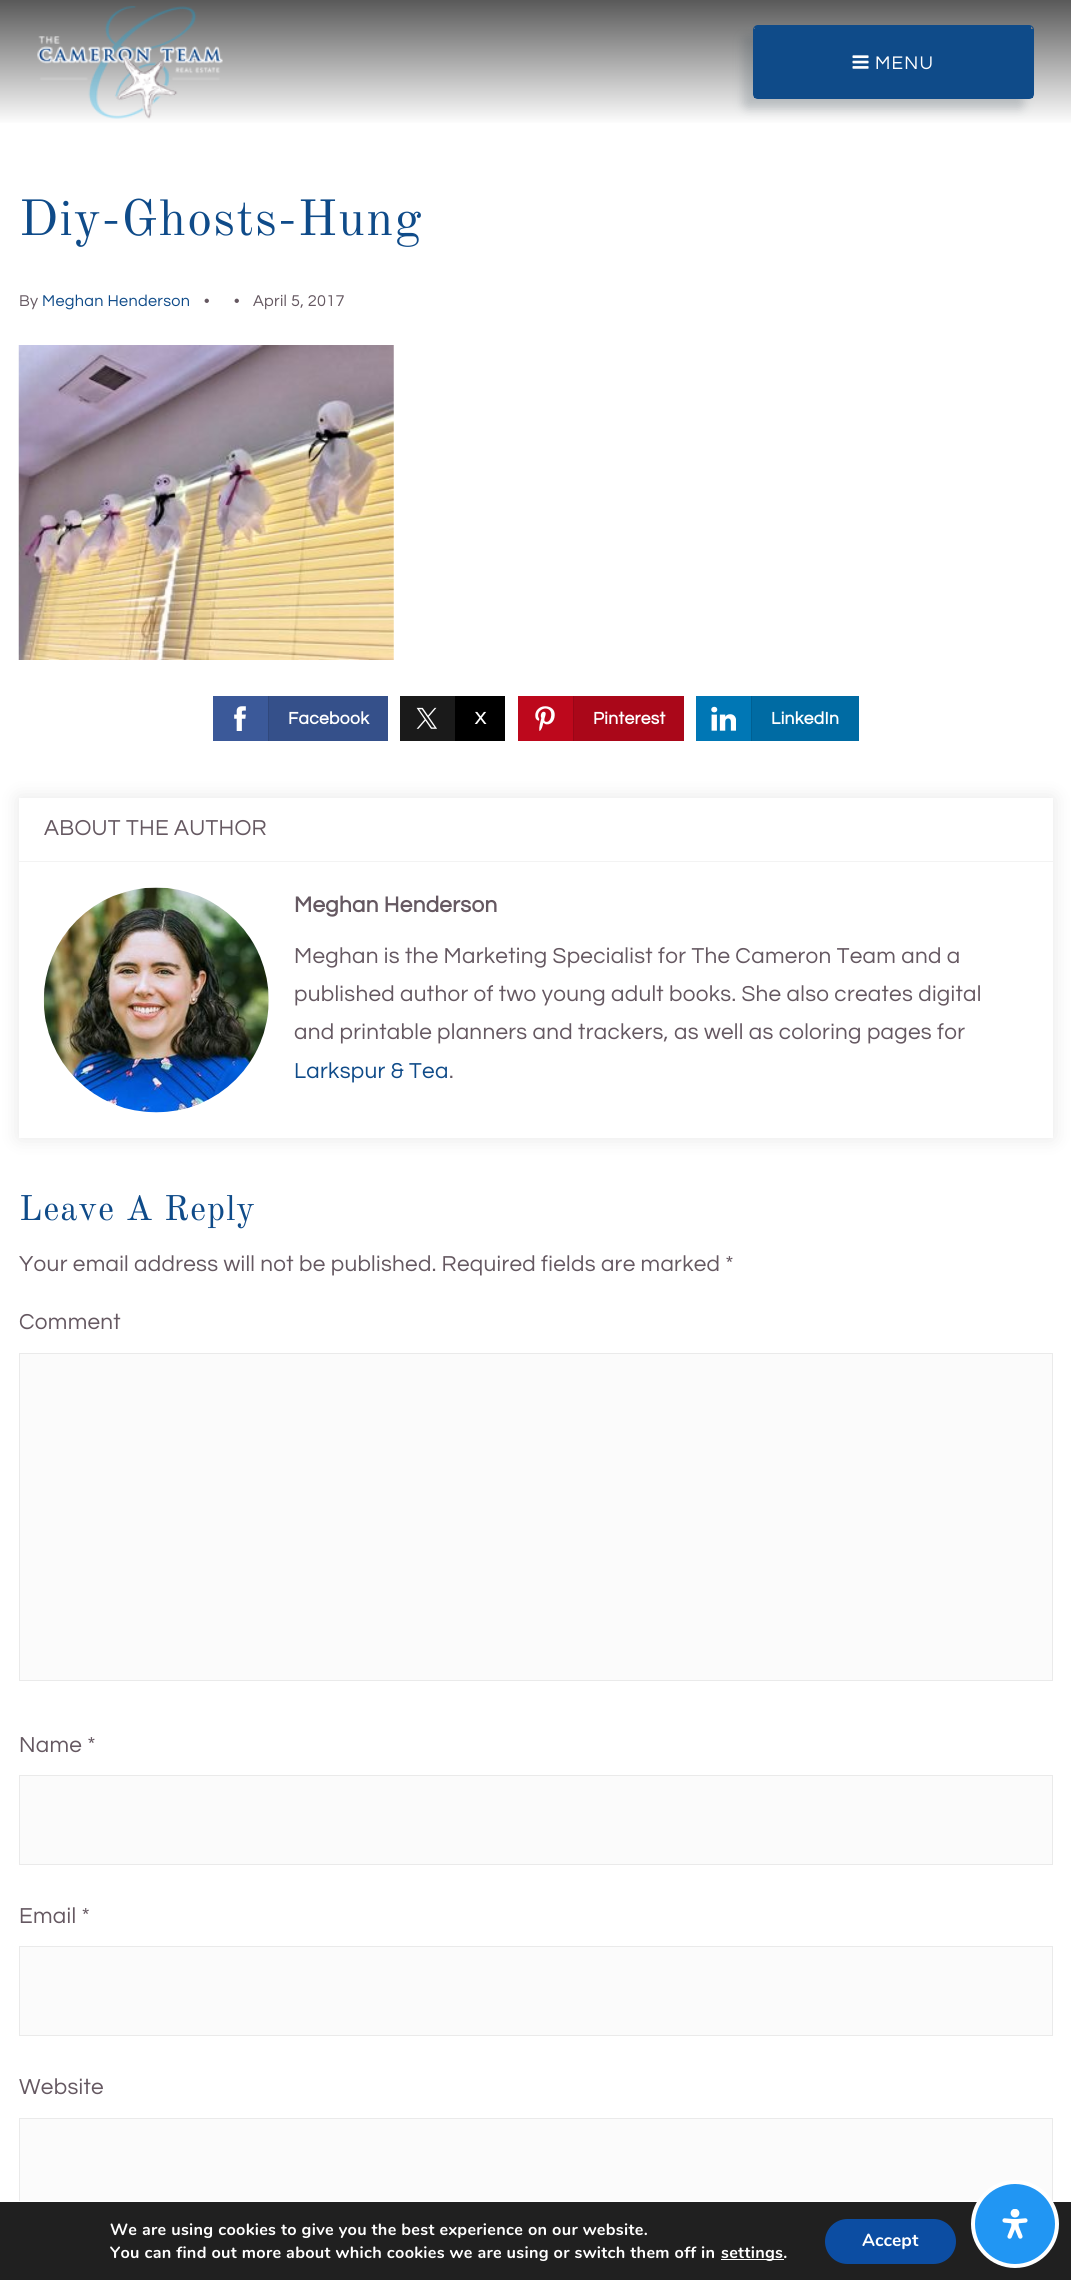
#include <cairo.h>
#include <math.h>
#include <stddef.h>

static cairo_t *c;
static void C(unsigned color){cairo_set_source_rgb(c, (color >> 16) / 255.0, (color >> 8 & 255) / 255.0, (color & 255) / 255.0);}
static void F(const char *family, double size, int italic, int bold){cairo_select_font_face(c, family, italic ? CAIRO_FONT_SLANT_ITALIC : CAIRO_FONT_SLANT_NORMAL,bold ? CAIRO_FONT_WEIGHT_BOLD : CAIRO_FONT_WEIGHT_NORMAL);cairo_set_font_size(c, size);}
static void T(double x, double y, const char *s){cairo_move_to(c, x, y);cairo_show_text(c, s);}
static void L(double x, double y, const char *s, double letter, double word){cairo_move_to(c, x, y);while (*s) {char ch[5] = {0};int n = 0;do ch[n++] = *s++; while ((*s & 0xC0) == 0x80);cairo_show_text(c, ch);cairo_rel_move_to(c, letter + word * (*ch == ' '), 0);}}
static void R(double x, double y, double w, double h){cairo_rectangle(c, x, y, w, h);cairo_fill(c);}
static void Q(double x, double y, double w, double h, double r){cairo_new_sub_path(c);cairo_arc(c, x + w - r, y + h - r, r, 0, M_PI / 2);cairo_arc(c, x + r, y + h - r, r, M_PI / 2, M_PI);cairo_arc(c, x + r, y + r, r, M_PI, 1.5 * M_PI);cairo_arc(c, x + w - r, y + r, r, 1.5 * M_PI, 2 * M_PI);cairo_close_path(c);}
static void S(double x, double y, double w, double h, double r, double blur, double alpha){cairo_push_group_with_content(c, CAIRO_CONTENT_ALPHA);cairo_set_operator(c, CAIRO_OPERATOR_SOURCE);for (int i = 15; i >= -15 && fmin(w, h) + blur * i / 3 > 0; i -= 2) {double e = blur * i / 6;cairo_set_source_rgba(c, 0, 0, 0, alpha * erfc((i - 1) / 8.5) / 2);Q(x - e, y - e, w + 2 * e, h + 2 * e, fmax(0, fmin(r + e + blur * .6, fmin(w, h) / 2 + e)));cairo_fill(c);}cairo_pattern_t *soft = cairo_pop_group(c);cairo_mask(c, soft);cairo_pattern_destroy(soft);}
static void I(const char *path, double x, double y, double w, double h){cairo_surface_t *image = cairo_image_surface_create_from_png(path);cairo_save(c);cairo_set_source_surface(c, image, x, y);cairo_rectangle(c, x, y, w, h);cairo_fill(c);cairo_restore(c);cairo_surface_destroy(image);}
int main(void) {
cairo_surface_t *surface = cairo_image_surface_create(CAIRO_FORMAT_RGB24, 1071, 2280);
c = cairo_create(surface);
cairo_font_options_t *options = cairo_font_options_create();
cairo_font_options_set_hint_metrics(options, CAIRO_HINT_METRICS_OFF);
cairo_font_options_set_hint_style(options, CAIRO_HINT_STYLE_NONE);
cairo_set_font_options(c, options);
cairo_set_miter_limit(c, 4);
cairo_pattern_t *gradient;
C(0xffffff);
cairo_paint(c);
gradient = cairo_pattern_create_linear(536,0,536,125);
cairo_pattern_add_color_stop_rgba(gradient,0,0.349,0.349,0.349,1);
cairo_pattern_add_color_stop_rgba(gradient,1,1,1,1,1);
cairo_set_source(c,gradient);
cairo_pattern_destroy(gradient);
R(0,0,1071,123);
I("1.png",37,6,186,113);
C(0x3c4e59);
S(743,35,281,74,5,5,.23);
Q(753.5,25.5,280,73,4.5);
C(0x0f4b89);
cairo_set_line_width(c,1);
cairo_stroke(c);
R(755,26,276,3);
R(754,29,279,69);
I("2.png",852,55,17,14);
F("Questrial",19,0,0);
C(0xffffff);
L(875,69,"MENU",1.25,0);
F("Old Standard TT",50,0,0);
C(0x0f4b89);
L(19,235,"Diy-Ghosts-Hung",1.25,0);
F("Questrial",16.25,0,0);
C(0x655861);
L(19,306,"By",.3,0);
C(0x0f4b89);
L(42,306,"Meghan Henderson",.3,0);
C(0x655861);
L(204,306,"•",.3,0);
L(234,306,"•",.3,0);
L(253,306,"April 5, 2017",.3,0);
I("3.png",18,345,376,315);
C(0x3b5999);
R(213,696,55,45);
I("4.png",234,706,12,25);
C(0x35508a);
R(269,696,119,45);
C(0x30487c);
R(268,696,1,45);
F("Questrial",17.5,0,1);
C(0xffffff);
L(288,724,"Facebook",.3,0);
C(0x000000);
R(455,696,50,45);
C(0x1a1a1a);
R(400,696,55,45);
I("5.png",416,707,21,22);
C(0xffffff);
L(475,724,"X",.3,0);
C(0xbd081c);
R(518,696,55,45);
I("6.png",535,706,20,25);
C(0xaa0719);
R(574,696,110,45);
C(0x990617);
R(573,696,1,45);
C(0xffffff);
L(593,724,"Pinterest",.3,0);
C(0x0077b5);
R(696,696,55,45);
I("7.png",711,706,25,25);
C(0x006ba3);
R(752,696,107,45);
C(0x006093);
R(751,696,1,45);
C(0xffffff);
L(771,724,"LinkedIn",.3,0);
cairo_save(c);
cairo_set_fill_rule(c,CAIRO_FILL_RULE_EVEN_ODD);
cairo_new_path(c);
cairo_move_to(c,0,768);
cairo_line_to(c,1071,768);
cairo_line_to(c,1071,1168);
cairo_line_to(c,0,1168);
cairo_close_path(c);
cairo_move_to(c,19,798);
cairo_line_to(c,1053,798);
cairo_line_to(c,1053,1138);
cairo_line_to(c,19,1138);
cairo_close_path(c);
cairo_clip(c);
C(0x000000);
S(19,798,1034,340,0,9.5,.1);
cairo_restore(c);
C(0xf3f3f3);
R(19,861,1034,1);
F("Questrial",22.5,0,0);
C(0x655861);
L(44,835,"ABOUT THE AUTHOR",.3,0);
I("8.png",43,887,226,226);
F("Questrial",22.5,0,1);
L(294,912,"Meghan Henderson",.3,0);
F("Questrial",22.5,0,0);
L(294,963,"Meghan is the Marketing Specialist for The Cameron Team and a",.3,0);
L(294,1001,"published author of two young adult books. She also creates digital",.3,0);
L(294,1039,"and printable planners and trackers, as well as coloring pages for",.3,0);
C(0x0f4b89);
L(294,1078,"Larkspur & Tea",.3,0);
C(0x655861);
L(449,1078,".",.3,0);
F("Old Standard TT",35,0,0);
C(0x0f4b89);
L(19,1220,"Leave A Reply",.9,0);
F("Questrial",22.5,0,0);
C(0x655861);
L(19,1271,"Your email address will not be published. Required fields are marked *",.3,0);
L(19,1329,"Comment",.3,0);
C(0xfbfbfb);
cairo_rectangle(c,19.5,1353.5,1033,327);
cairo_fill_preserve(c);
C(0xeaeaea);
cairo_stroke(c);
C(0x655861);
L(19,1752,"Name *",.3,0);
C(0xfbfbfb);
cairo_rectangle(c,19.5,1775.5,1033,89);
cairo_fill_preserve(c);
C(0xeaeaea);
cairo_stroke(c);
C(0x655861);
L(19,1923,"Email *",.3,0);
C(0xfbfbfb);
cairo_rectangle(c,19.5,1946.5,1033,89);
cairo_fill_preserve(c);
C(0xeaeaea);
cairo_stroke(c);
C(0x655861);
L(19,2094,"Website",.3,0);
C(0xfbfbfb);
R(20,2119,1032,82);
cairo_rectangle(c,19.5,2118.5,1033,89);
C(0xeaeaea);
cairo_stroke(c);
C(0x202020);
R(0,2202,1071,78);
C(0xffffff);
R(19,2201,1034,1);
F("Nunito",16.25,0,1);
L(110,2235,"We are using cookies to give you the best experience on our website.",.3,0);
L(110,2258,"You can find out more about which cookies we are using or switch them off in",.3,0);
R(721,2259,63,1);
L(721,2258,"settings.",.3,0);
C(0x0c4da2);
Q(825,2219,131,45,22.5);
cairo_fill(c);
F("Nunito",17.5,0,1);
C(0xffffff);
T(862,2246,"Accept");
C(0x2196f3);
cairo_new_path(c);
cairo_arc(c,1015,2224,42,0,2 * M_PI);
cairo_fill_preserve(c);
C(0xffffff);
cairo_set_line_width(c,4);
cairo_stroke(c);
I("9.png",1002,2209,26,30);
cairo_surface_write_to_png(surface, "o.png");
cairo_font_options_destroy(options);
cairo_destroy(c);
cairo_surface_destroy(surface);
return 0;
}
